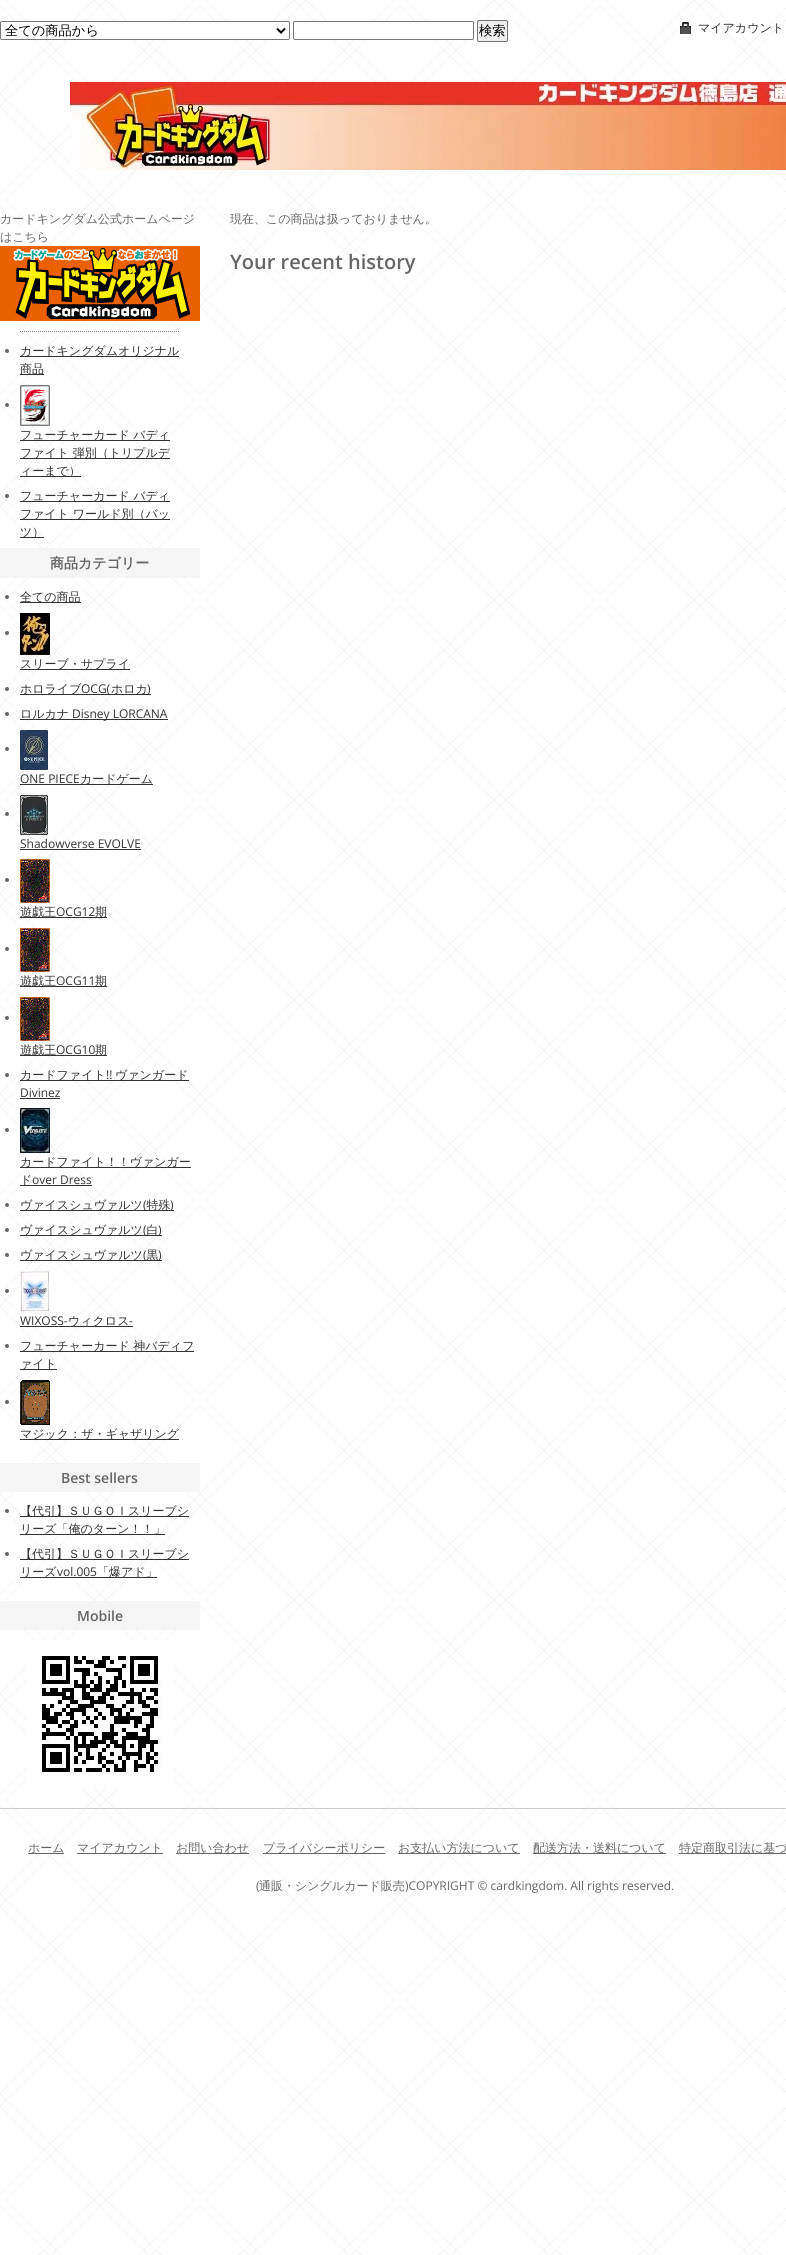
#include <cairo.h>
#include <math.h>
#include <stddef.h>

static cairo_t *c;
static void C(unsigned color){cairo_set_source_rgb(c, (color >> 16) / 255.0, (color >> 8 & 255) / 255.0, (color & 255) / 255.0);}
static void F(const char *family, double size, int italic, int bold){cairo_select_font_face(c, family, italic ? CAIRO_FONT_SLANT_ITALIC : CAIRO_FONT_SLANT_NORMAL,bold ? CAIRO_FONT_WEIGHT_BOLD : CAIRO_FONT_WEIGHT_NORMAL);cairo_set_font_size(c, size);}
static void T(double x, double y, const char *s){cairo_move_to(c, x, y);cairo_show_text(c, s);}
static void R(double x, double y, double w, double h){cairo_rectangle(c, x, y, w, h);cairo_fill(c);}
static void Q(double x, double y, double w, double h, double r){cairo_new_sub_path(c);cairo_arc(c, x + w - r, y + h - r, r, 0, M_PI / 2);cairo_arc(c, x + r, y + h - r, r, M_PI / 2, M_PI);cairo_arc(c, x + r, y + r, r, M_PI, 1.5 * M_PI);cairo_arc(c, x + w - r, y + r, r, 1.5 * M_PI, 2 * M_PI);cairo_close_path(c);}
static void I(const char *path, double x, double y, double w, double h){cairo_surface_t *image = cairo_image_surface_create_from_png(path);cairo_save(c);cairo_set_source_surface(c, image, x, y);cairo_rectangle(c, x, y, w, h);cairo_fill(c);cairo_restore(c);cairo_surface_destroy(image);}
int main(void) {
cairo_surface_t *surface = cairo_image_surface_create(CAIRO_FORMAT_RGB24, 786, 2255);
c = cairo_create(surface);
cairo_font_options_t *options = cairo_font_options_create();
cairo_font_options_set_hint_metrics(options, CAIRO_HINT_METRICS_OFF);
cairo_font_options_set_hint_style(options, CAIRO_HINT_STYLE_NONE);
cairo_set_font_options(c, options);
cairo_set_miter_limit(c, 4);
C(0xffffff);
cairo_paint(c);
I("1.png",0,0,786,2255);
C(0xffffff);
Q(.5,21.5,289,18,1.5);
cairo_fill_preserve(c);
C(0x767676);
cairo_set_line_width(c,1);
cairo_stroke(c);
cairo_new_path(c);
cairo_move_to(c,277,28.5);
cairo_line_to(c,281,32.5);
cairo_line_to(c,285,28.5);
C(0x000000);
cairo_set_line_width(c,2);
cairo_stroke(c);
F("WenQuanYi Zen Hei Medium",13.25,0,0);
T(5,35,"全ての商品から");
C(0xffffff);
Q(293.5,21.5,180,18,1.5);
cairo_fill_preserve(c);
C(0x767676);
cairo_set_line_width(c,1);
cairo_stroke(c);
C(0xefefef);
Q(477.5,20.5,30,21,1.5);
cairo_fill_preserve(c);
C(0x767676);
cairo_stroke(c);
C(0x000000);
T(479,35,"検索");
I("2.png",680,22,11,12);
F("WenQuanYi Zen Hei Medium",12,0,0);
C(0x333333);
T(698,32,"マイアカウント");
I("3.png",70,82,716,88);
C(0x666666);
T(0,223,"カードキングダム公式ホームページ");
T(0,241,"はこちら");
I("4.png",0,246,200,75);
cairo_new_path(c);
cairo_move_to(c,20,331.5);
cairo_line_to(c,180,331.5);
C(0x838383);
cairo_set_dash(c,(double[]){1,1},2,0);
cairo_stroke(c);
C(0x666666);
cairo_arc(c,7,351,2,0,2 * M_PI);
cairo_fill(c);
C(0x333333);
R(20,356,159,1);
T(20,355,"カードキングダムオリジナル");
R(20,374,24,1);
T(20,373,"商品");
C(0x666666);
cairo_new_path(c);
cairo_arc(c,7,405,2,0,2 * M_PI);
cairo_fill(c);
I("5.png",20,385,30,41);
C(0x333333);
R(20,440,150,1);
T(20,439,"フューチャーカード バディ");
R(20,458,150,1);
T(20,457,"ファイト 弾別（トリプルデ");
R(20,476,61,1);
T(20,475,"ィーまで）");
C(0x666666);
cairo_new_path(c);
cairo_arc(c,7,496,2,0,2 * M_PI);
cairo_fill(c);
C(0x333333);
R(20,501,150,1);
T(20,500,"フューチャーカード バディ");
R(20,519,150,1);
T(20,518,"ファイト ワールド別（バッ");
R(20,537,24,1);
T(20,536,"ツ）");
C(0xf5f5f5);
R(0,548,200,30);
F("WenQuanYi Zen Hei",14,0,1);
C(0x666666);
T(50,568,"商品カテゴリー");
cairo_new_path(c);
cairo_arc(c,7,597,2,0,2 * M_PI);
cairo_fill(c);
C(0x333333);
R(20,602,61,1);
F("WenQuanYi Zen Hei Medium",12,0,0);
T(20,601,"全ての商品");
C(0x666666);
cairo_new_path(c);
cairo_arc(c,7,633,2,0,2 * M_PI);
cairo_fill(c);
I("6.png",20,613,30,42);
C(0x333333);
R(20,669,110,1);
T(20,668,"スリーブ・サプライ");
C(0x666666);
cairo_new_path(c);
cairo_arc(c,7,689,2,0,2 * M_PI);
cairo_fill(c);
C(0x333333);
R(20,694,131,1);
T(20,693,"ホロライブ");
F("Open Sans",12,0,0);
T(81,693,"OCG(");
F("WenQuanYi Zen Hei Medium",12,0,0);
T(111,693,"ホロカ");
F("Open Sans",12,0,0);
T(147,693,")");
C(0x666666);
cairo_new_path(c);
cairo_arc(c,7,714,2,0,2 * M_PI);
cairo_fill(c);
C(0x333333);
R(20,719,148,1);
F("WenQuanYi Zen Hei Medium",12,0,0);
T(20,718,"ロルカナ");
F("Open Sans",12,0,0);
T(72,718,"Disney LORCANA");
C(0x666666);
cairo_new_path(c);
cairo_arc(c,7,749,2,0,2 * M_PI);
cairo_fill(c);
I("7.png",20,730,28,40);
C(0x333333);
T(20,783,"ONE PIECE");
R(20,784,133,1);
F("WenQuanYi Zen Hei Medium",12,0,0);
T(80,783,"カードゲーム");
C(0x666666);
cairo_new_path(c);
cairo_arc(c,7,814,2,0,2 * M_PI);
cairo_fill(c);
I("8.png",20,795,28,40);
F("Open Sans",12,0,0);
C(0x333333);
T(20,848,"Shadowverse EVOLVE");
R(20,849,121,1);
C(0x666666);
cairo_new_path(c);
cairo_arc(c,7,880,2,0,2 * M_PI);
cairo_fill(c);
I("9.png",20,859,30,44);
C(0x333333);
R(20,917,87,1);
F("WenQuanYi Zen Hei Medium",12,0,0);
T(20,916,"遊戯王");
F("Open Sans",12,0,0);
T(56,916,"OCG12");
F("WenQuanYi Zen Hei Medium",12,0,0);
T(95,916,"期");
C(0x666666);
cairo_new_path(c);
cairo_arc(c,7,949,2,0,2 * M_PI);
cairo_fill(c);
I("9.png",20,928,30,44);
C(0x333333);
R(20,986,87,1);
T(20,985,"遊戯王");
F("Open Sans",12,0,0);
T(56,985,"OCG11");
F("WenQuanYi Zen Hei Medium",12,0,0);
T(95,985,"期");
C(0x666666);
cairo_new_path(c);
cairo_arc(c,7,1018,2,0,2 * M_PI);
cairo_fill(c);
I("9.png",20,997,30,44);
C(0x333333);
R(20,1055,87,1);
T(20,1054,"遊戯王");
F("Open Sans",12,0,0);
T(56,1054,"OCG10");
F("WenQuanYi Zen Hei Medium",12,0,0);
T(95,1054,"期");
C(0x666666);
cairo_new_path(c);
cairo_arc(c,7,1075,2,0,2 * M_PI);
cairo_fill(c);
C(0x333333);
R(20,1080,169,1);
T(20,1079,"カードファイト");
F("Open Sans",12,0,0);
T(106,1079,"!!");
F("WenQuanYi Zen Hei Medium",12,0,0);
T(115,1079,"ヴァンガード");
F("Open Sans",12,0,0);
T(20,1097,"Divinez");
R(20,1098,40,1);
C(0x666666);
cairo_new_path(c);
cairo_arc(c,7,1130,2,0,2 * M_PI);
cairo_fill(c);
I("10.png",20,1108,30,45);
C(0x333333);
R(20,1167,171,1);
F("WenQuanYi Zen Hei Medium",12,0,0);
T(20,1166,"カードファイト！！ヴァンガー");
R(20,1185,72,1);
T(20,1184,"ド");
F("Open Sans",12,0,0);
T(32,1184,"over Dress");
R(20,1210,154,1);
F("WenQuanYi Zen Hei Medium",12,0,0);
T(20,1209,"ヴァイスシュヴァルツ 特殊");
C(0x666666);
cairo_new_path(c);
cairo_arc(c,7,1205,2,0,2 * M_PI);
cairo_fill(c);
F("Open Sans",12,0,0);
C(0x333333);
T(143,1209,"(");
T(170,1209,")");
R(20,1235,142,1);
F("WenQuanYi Zen Hei Medium",12,0,0);
T(20,1234,"ヴァイスシュヴァルツ 白");
C(0x666666);
cairo_new_path(c);
cairo_arc(c,7,1230,2,0,2 * M_PI);
cairo_fill(c);
F("Open Sans",12,0,0);
C(0x333333);
T(143,1234,"(");
T(158,1234,")");
R(20,1260,142,1);
F("WenQuanYi Zen Hei Medium",12,0,0);
T(20,1259,"ヴァイスシュヴァルツ 黒");
C(0x666666);
cairo_new_path(c);
cairo_arc(c,7,1255,2,0,2 * M_PI);
cairo_fill(c);
F("Open Sans",12,0,0);
C(0x333333);
T(143,1259,"(");
T(158,1259,")");
C(0x666666);
cairo_new_path(c);
cairo_arc(c,7,1291,2,0,2 * M_PI);
cairo_fill(c);
I("11.png",20,1271,30,41);
C(0x333333);
T(20,1325,"WIXOSS-");
R(20,1326,113,1);
F("WenQuanYi Zen Hei Medium",12,0,0);
T(68,1325,"ウィクロス");
F("Open Sans",12,0,0);
T(129,1325,"-");
C(0x666666);
cairo_new_path(c);
cairo_arc(c,7,1346,2,0,2 * M_PI);
cairo_fill(c);
C(0x333333);
R(20,1351,174,1);
F("WenQuanYi Zen Hei Medium",12,0,0);
T(20,1350,"フューチャーカード 神バディフ");
R(20,1369,37,1);
T(20,1368,"ァイト");
C(0x666666);
cairo_new_path(c);
cairo_arc(c,7,1402,2,0,2 * M_PI);
cairo_fill(c);
I("12.png",20,1380,30,45);
C(0x333333);
R(20,1439,159,1);
T(20,1438,"マジック：ザ・ギャザリング");
C(0xf5f5f5);
R(0,1463,200,29);
F("Open Sans SemiBold",14,0,0);
C(0x666666);
T(61,1483,"Best sellers");
cairo_new_path(c);
cairo_arc(c,7,1511,2,0,2 * M_PI);
cairo_fill(c);
C(0x333333);
R(20,1516,169,1);
F("WenQuanYi Zen Hei Medium",12,0,0);
T(20,1515,"【代引】ＳＵＧＯＩスリーブシ");
R(20,1534,145,1);
T(20,1533,"リーズ「俺のターン！！」");
C(0x666666);
cairo_new_path(c);
cairo_arc(c,7,1554,2,0,2 * M_PI);
cairo_fill(c);
C(0x333333);
R(20,1559,169,1);
T(20,1558,"【代引】ＳＵＧＯＩスリーブシ");
R(20,1577,137,1);
T(20,1576,"リーズ");
F("Open Sans",12,0,0);
T(57,1576,"vol.005");
F("WenQuanYi Zen Hei Medium",12,0,0);
T(97,1576,"「爆アド」");
C(0xf5f5f5);
R(0,1601,200,29);
F("Open Sans SemiBold",14,0,0);
C(0x666666);
T(77,1621,"Mobile");
I("13.png",26,1640,148,148);
F("WenQuanYi Zen Hei Medium",12,0,0);
T(230,223,"現在、この商品は扱っておりません。");
F("Open Sans SemiBold",20,0,0);
T(230,269,"Your recent history");
C(0xcccccc);
R(0,1808,786,1);
C(0x666666);
R(28,1853,36,1);
F("WenQuanYi Zen Hei Medium",12,0,0);
T(28,1852,"ホーム");
R(77,1853,86,1);
T(77,1852,"マイアカウント");
R(176,1853,73,1);
T(176,1852,"お問い合わせ");
R(263,1853,122,1);
T(263,1852,"プライバシーポリシー");
R(398,1853,122,1);
T(398,1852,"お支払い方法について");
R(533,1853,133,1);
T(533,1852,"配送方法・送料について");
R(679,1853,107,1);
T(679,1852,"特定商取引法に基づ");
F("Open Sans",12,0,0);
T(256,1890,"(");
F("WenQuanYi Zen Hei Medium",12,0,0);
T(259,1890,"通販・シングルカード販売");
F("Open Sans",12,0,0);
T(405,1890,")COPYRIGHT © cardkingdom. All rights reserved.");
cairo_surface_write_to_png(surface, "o.png");
cairo_font_options_destroy(options);
cairo_destroy(c);
cairo_surface_destroy(surface);
return 0;
}
